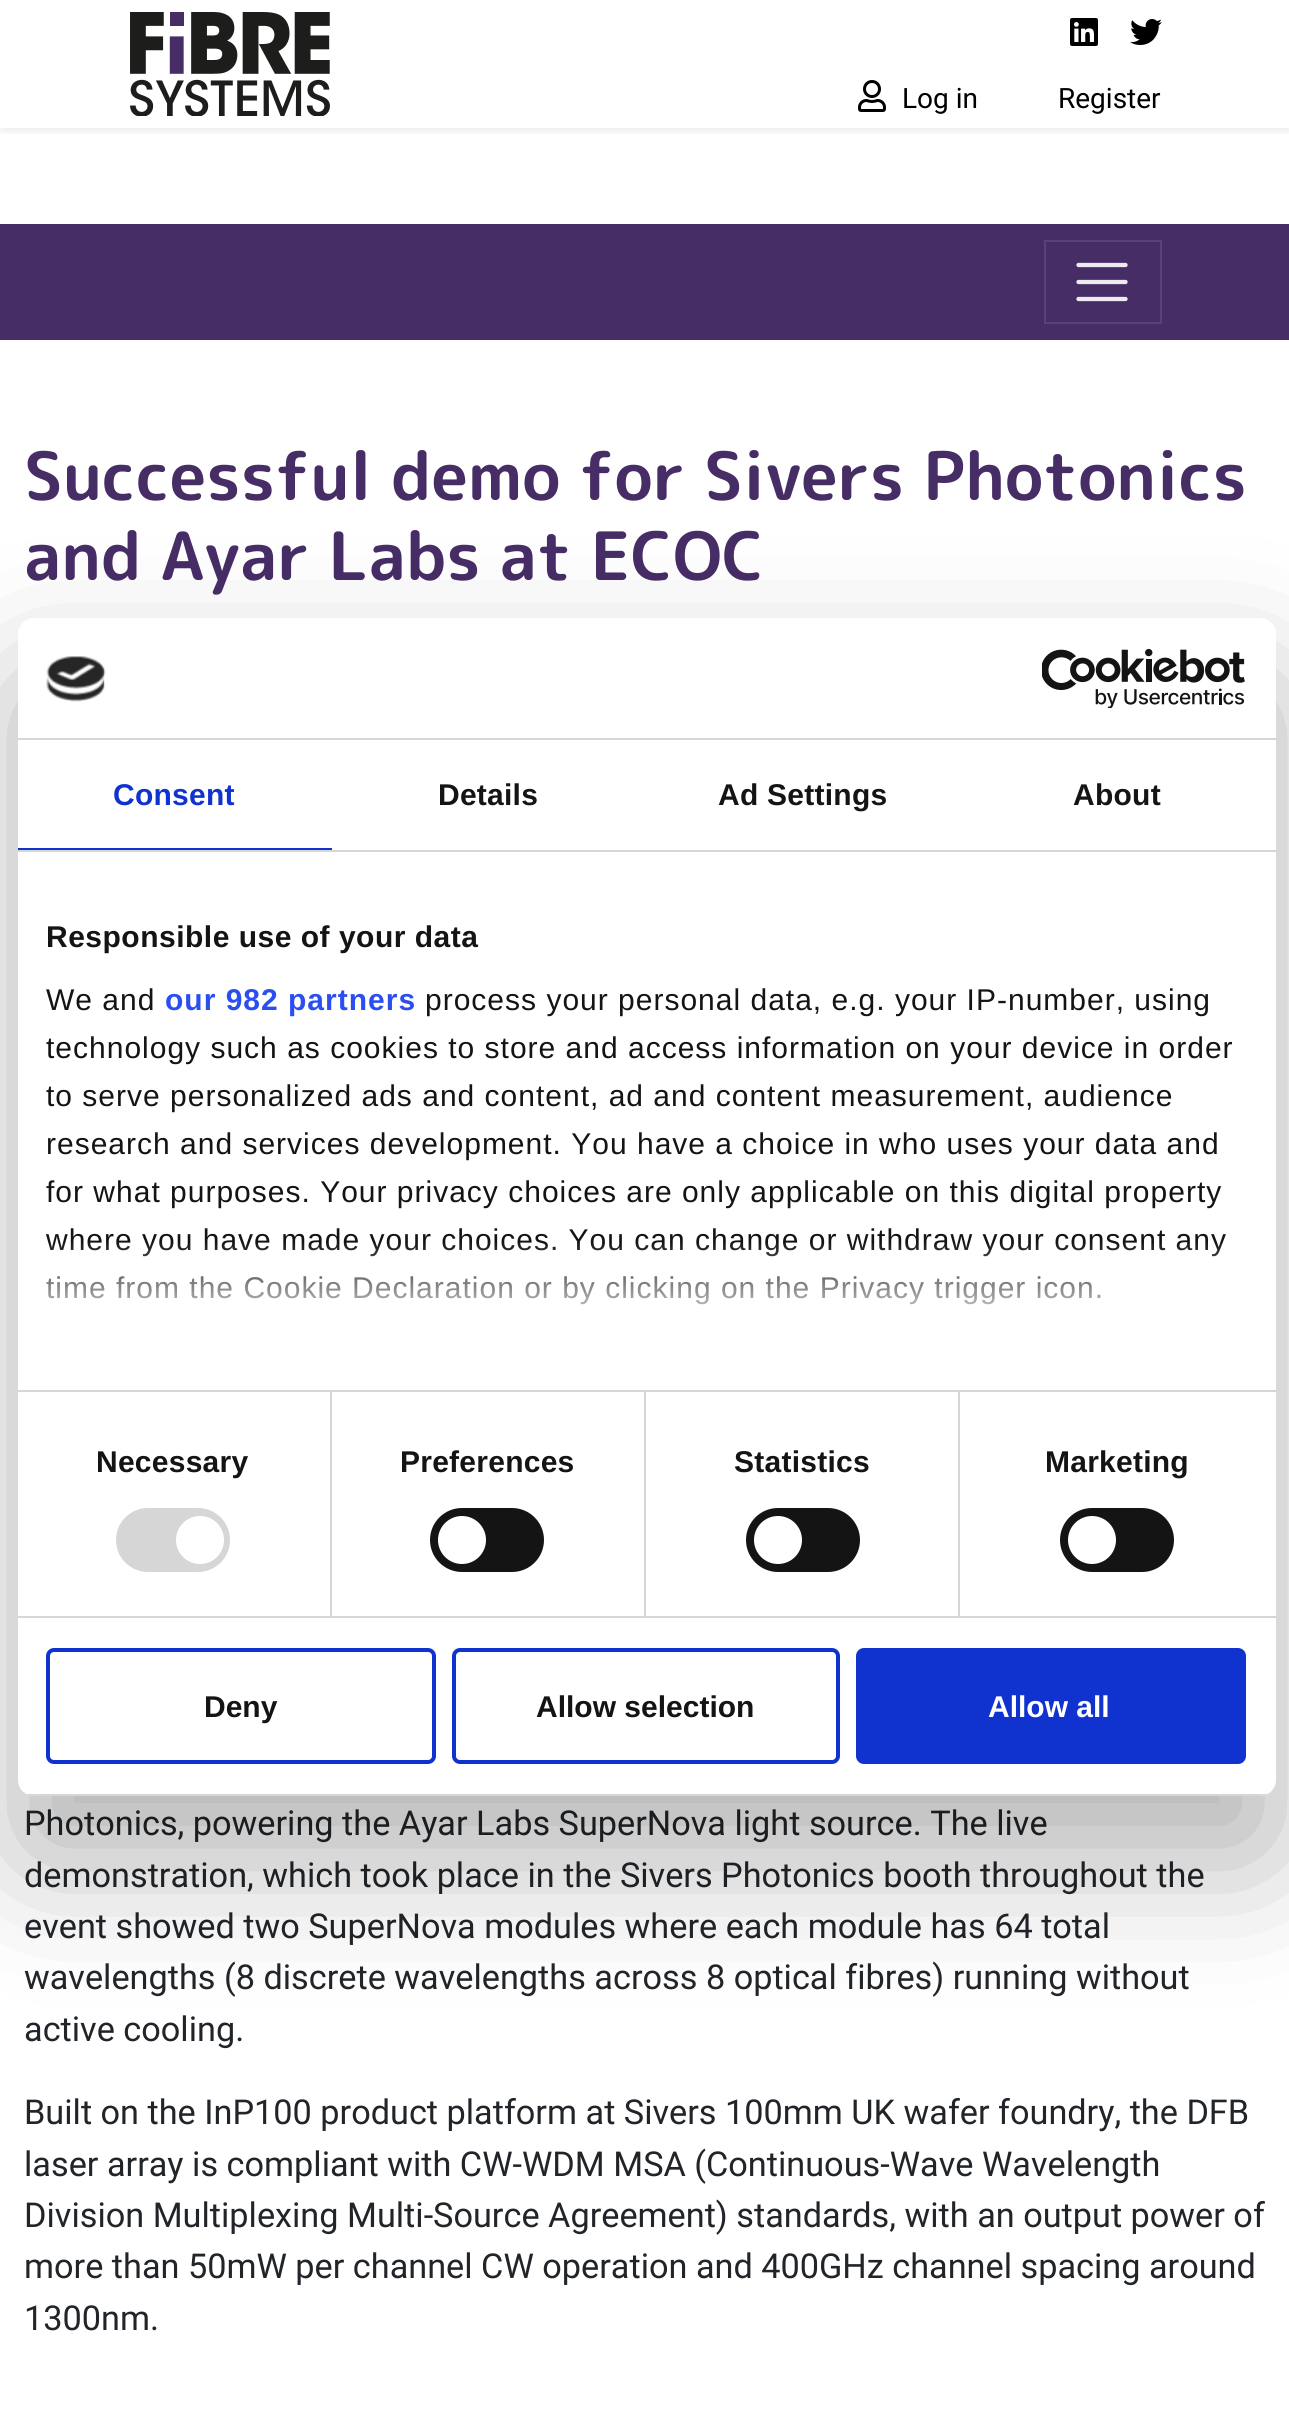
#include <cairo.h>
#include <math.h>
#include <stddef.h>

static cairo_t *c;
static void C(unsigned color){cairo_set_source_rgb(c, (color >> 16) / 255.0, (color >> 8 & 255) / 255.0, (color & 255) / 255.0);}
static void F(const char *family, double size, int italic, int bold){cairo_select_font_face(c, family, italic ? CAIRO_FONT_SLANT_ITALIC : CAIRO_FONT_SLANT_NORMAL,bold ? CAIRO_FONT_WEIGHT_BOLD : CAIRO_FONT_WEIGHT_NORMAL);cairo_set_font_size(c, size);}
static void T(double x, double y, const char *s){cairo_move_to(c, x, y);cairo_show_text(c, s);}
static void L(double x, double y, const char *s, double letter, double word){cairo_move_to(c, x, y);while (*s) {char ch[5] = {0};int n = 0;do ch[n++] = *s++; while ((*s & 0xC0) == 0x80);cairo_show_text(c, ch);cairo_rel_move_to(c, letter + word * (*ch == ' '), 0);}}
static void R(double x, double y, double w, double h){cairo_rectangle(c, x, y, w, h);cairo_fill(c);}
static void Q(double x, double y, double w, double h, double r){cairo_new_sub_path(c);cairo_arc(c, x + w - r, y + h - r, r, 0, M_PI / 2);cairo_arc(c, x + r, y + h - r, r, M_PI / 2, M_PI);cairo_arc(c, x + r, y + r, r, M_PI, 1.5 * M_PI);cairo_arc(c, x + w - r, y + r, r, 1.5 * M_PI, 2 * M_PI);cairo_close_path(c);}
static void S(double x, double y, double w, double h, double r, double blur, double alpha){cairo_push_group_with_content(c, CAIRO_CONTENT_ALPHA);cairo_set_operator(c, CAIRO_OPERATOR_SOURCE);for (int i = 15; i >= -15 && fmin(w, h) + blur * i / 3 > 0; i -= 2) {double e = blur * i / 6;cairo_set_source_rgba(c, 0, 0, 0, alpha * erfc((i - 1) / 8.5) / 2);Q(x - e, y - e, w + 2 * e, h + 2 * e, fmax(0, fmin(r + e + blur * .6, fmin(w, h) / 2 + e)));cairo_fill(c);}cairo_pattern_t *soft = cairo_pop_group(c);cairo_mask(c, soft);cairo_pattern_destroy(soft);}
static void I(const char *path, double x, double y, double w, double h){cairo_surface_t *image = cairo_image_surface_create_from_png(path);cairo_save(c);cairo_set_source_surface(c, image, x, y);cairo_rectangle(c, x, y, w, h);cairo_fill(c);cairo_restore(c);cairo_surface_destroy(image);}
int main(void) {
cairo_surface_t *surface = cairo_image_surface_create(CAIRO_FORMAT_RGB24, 1289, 2415);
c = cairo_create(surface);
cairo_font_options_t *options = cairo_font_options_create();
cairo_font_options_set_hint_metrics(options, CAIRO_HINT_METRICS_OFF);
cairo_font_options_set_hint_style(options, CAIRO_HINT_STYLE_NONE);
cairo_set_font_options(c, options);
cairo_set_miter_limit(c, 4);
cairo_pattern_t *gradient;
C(0xffffff);
cairo_paint(c);
cairo_save(c);
cairo_rectangle(c,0,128,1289,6);
cairo_clip(c);
C(0x000000);
S(0,4,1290,128,0,4,.07);
cairo_restore(c);
I("1.png",130,12,200,104);
I("2.png",1070,18,28,28);
I("3.png",1130,19,32,26);
I("4.png",858,80,28,32);
F("Roboto",28,0,0);
C(0x000000);
T(902,108,"Log in");
T(1058,108,"Register");
C(0x472d65);
R(0,224,1289,116);
cairo_rectangle(c,1045,241,116,82);
C(0x594274);
cairo_stroke(c);
cairo_new_path(c);
cairo_move_to(c,1078.5,265);
cairo_line_to(c,1125.5,265);
cairo_move_to(c,1078.5,282);
cairo_line_to(c,1125.5,282);
cairo_move_to(c,1078.5,299);
cairo_line_to(c,1125.5,299);
C(0xedeaf0);
cairo_set_line_width(c,4.3);
cairo_set_line_cap(c,CAIRO_LINE_CAP_ROUND);
cairo_stroke(c);
F("Rounded Mplus 1c Bold",66.6,0,1);
C(0x472d65);
T(24,500,"Successful demo for Sivers Photonics");
T(24,580,"and Ayar Labs at ECOC");
F("Roboto",34.25,0,0);
C(0x212529);
T(24,1835,"Photonics, powering the Ayar Labs SuperNova light source. The live");
T(24,1887,"demonstration, which took place in the Sivers Photonics booth throughout the");
T(24,1938,"event showed two SuperNova modules where each module has 64 total");
T(24,1989,"wavelengths (8 discrete wavelengths across 8 optical fibres) running without");
T(24,2041,"active cooling.");
T(24,2124,"Built on the InP100 product platform at Sivers 100mm UK wafer foundry, the DFB");
T(24,2176,"laser array is compliant with CW-WDM MSA (Continuous-Wave Wavelength");
T(24,2227,"Division Multiplexing Multi-Source Agreement) standards, with an output power of");
T(24,2278,"more than 50mW per channel CW operation and 400GHz channel spacing around");
T(24,2330,"1300nm.");
C(0x000000);
S(18,682,1258,1178,16,68,.3);
C(0xffffff);
Q(18,618,1258,1178,16);
cairo_fill(c);
C(0xd6d6d6);
R(18,738,1258,2);
I("5.png",46,656,60,46);
I("6.png",1042,648,203,60);
R(18,850,1258,2);
C(0x1032cf);
R(18,848,314,2);
F("Liberation Sans",30,0,1);
L(113,805,"Consent",.25,0);
C(0x141414);
L(438,805,"Details",.25,0);
L(718,805,"Ad Settings",.25,0);
L(1073,805,"About",.25,0);
C(0xd6d6d6);
R(18,1390,1258,2);
C(0x141414);
L(46,947,"Responsible use of your data",.5,0);
F("Liberation Sans",30,0,0);
L(46,1010,"We and",1,0);
F("Liberation Sans",30,0,1);
C(0x2a4eef);
L(165,1010,"our 982 partners",1,0);
F("Liberation Sans",30,0,0);
C(0x141414);
L(425,1010,"process your personal data, e.g. your IP-number, using",1,0);
L(46,1058,"technology such as cookies to store and access information on your device in order",1,0);
L(46,1106,"to serve personalized ads and content, ad and content measurement, audience",1,0);
L(46,1154,"research and services development. You have a choice in who uses your data and",1,0);
L(46,1202,"for what purposes. Your privacy choices are only applicable on this digital property",1,0);
L(46,1250,"where you have made your choices. You can change or withdraw your consent any",1,0);
L(46,1298,"time from the Cookie Declaration or by clicking on the Privacy trigger icon.",1,0);
gradient = cairo_pattern_create_linear(633,1391,633,1241);
cairo_pattern_add_color_stop_rgba(gradient,0,1,1,1,1);
cairo_pattern_add_color_stop_rgba(gradient,.5,1,1,1,.8);
cairo_pattern_add_color_stop_rgba(gradient,1,1,1,1,0);
cairo_set_source(c,gradient);
cairo_pattern_destroy(gradient);
R(46,1243,1176,62);
C(0xd6d6d6);
R(18,1616,1258,2);
R(330,1392,2,224);
F("Liberation Sans",30,0,1);
C(0x141414);
L(96,1472,"Necessary",.25,0);
C(0xd6d6d6);
Q(116,1508,114,64,32);
cairo_fill(c);
C(0xffffff);
cairo_arc(c,200,1540,24,0,2 * M_PI);
cairo_fill(c);
C(0xd6d6d6);
R(644,1392,2,224);
C(0x141414);
L(400,1472,"Preferences",.25,0);
Q(430,1508,114,64,32);
cairo_fill(c);
C(0xffffff);
cairo_arc(c,462,1540,24,0,2 * M_PI);
cairo_fill(c);
C(0xd6d6d6);
R(958,1392,2,224);
C(0x141414);
L(734,1472,"Statistics",.25,0);
Q(746,1508,114,64,32);
cairo_fill(c);
C(0xffffff);
cairo_arc(c,778,1540,24,0,2 * M_PI);
cairo_fill(c);
C(0x141414);
L(1045,1472,"Marketing",.25,0);
Q(1060,1508,114,64,32);
cairo_fill(c);
C(0xffffff);
cairo_arc(c,1092,1540,24,0,2 * M_PI);
cairo_fill(c);
cairo_save(c);
Q(18,618,1258,1178,16);
cairo_clip(c);
C(0xd6d6d6);
R(18,1794,1258,2);
cairo_restore(c);
Q(48,1650,386,112,6);
C(0x1032cf);
cairo_set_line_width(c,4);
cairo_set_line_cap(c,CAIRO_LINE_CAP_BUTT);
cairo_stroke(c);
C(0x141414);
T(204,1717,"Deny");
Q(454,1650,384,112,6);
C(0x1032cf);
cairo_stroke(c);
C(0x141414);
T(536,1717,"Allow selection");
C(0x1032cf);
Q(858,1650,386,112,6);
cairo_fill_preserve(c);
cairo_stroke(c);
C(0xffffff);
T(988,1717,"Allow all");
cairo_surface_write_to_png(surface, "o.png");
cairo_font_options_destroy(options);
cairo_destroy(c);
cairo_surface_destroy(surface);
return 0;
}
